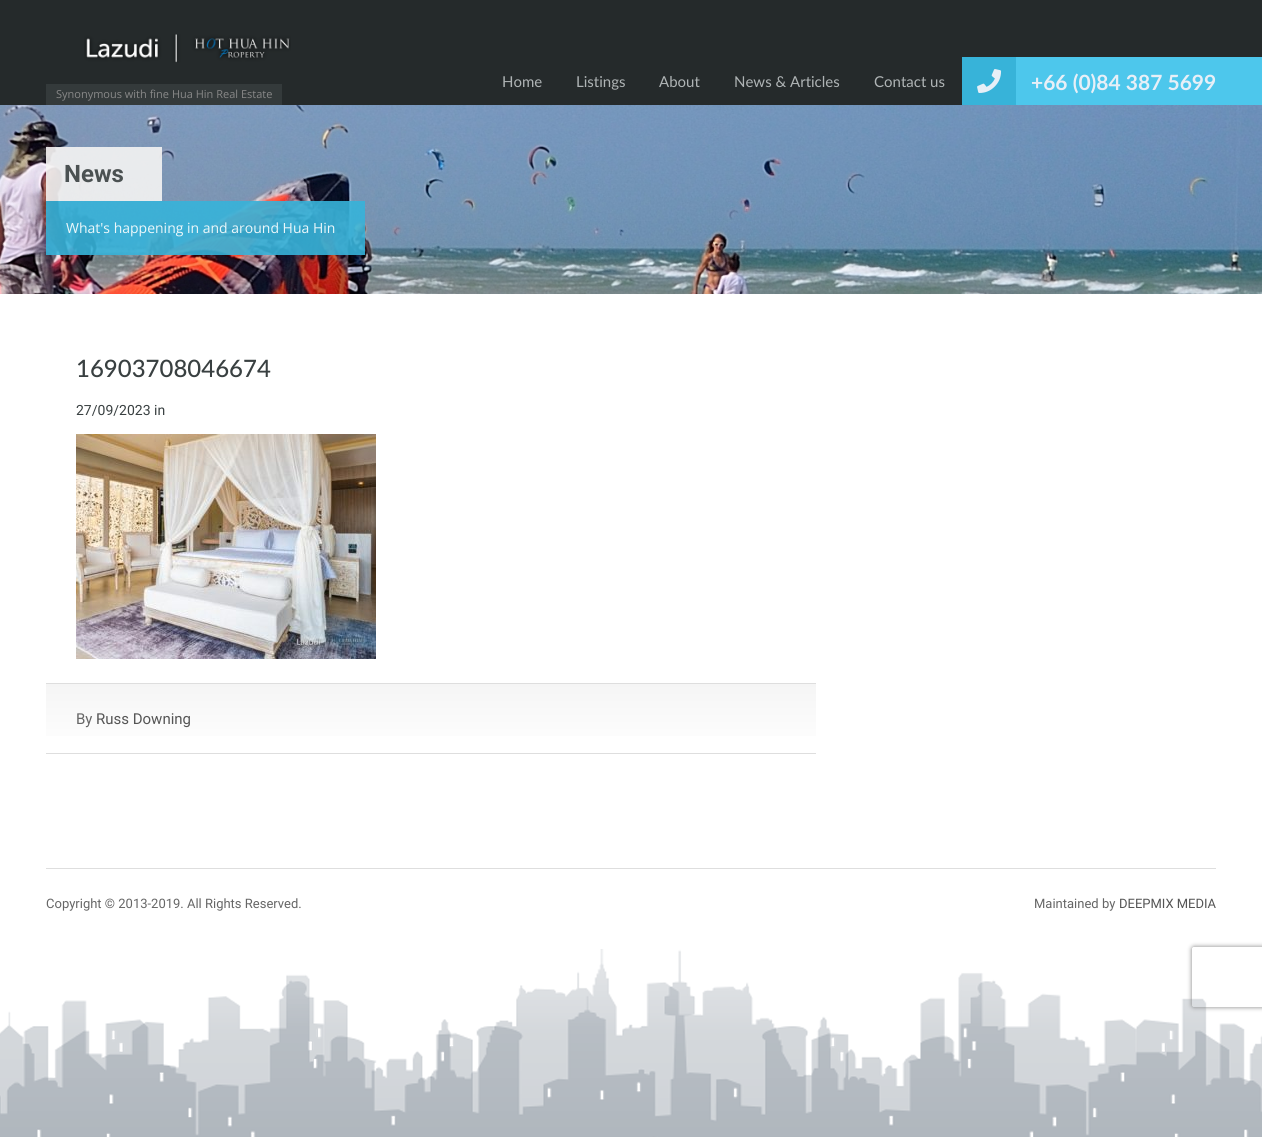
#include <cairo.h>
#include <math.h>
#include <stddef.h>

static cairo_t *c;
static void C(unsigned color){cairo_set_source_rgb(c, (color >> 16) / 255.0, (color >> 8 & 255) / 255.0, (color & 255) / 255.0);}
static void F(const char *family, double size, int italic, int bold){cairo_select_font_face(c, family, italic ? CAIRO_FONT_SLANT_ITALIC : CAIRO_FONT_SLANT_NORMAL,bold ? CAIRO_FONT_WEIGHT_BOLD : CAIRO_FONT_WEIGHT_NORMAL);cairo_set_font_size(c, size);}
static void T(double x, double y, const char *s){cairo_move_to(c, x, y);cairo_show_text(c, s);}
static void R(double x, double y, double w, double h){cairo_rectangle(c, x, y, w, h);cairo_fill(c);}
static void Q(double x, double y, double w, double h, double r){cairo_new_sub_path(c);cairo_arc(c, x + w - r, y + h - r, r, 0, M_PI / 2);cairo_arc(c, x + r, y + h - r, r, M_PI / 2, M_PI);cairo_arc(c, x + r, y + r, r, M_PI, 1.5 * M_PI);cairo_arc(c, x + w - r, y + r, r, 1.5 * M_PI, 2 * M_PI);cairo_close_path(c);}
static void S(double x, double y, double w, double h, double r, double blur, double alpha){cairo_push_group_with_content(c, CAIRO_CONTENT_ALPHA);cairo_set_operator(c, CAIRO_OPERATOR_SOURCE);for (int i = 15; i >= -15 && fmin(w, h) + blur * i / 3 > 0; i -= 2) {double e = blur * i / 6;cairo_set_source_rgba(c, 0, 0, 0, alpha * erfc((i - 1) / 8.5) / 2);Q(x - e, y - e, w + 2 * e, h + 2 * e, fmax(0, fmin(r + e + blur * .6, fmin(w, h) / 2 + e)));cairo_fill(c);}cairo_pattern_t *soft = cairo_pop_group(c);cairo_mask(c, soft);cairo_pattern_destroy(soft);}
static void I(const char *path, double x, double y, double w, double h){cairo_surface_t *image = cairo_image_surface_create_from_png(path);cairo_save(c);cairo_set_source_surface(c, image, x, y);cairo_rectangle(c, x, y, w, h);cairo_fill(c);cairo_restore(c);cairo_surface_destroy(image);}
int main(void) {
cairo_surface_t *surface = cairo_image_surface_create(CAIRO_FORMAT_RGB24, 1262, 1137);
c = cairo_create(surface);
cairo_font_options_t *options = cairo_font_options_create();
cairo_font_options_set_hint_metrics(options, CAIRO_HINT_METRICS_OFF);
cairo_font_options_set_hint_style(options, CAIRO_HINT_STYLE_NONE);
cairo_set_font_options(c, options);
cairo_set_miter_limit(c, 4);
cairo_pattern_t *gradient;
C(0xffffff);
cairo_paint(c);
C(0x252a2b);
R(0,0,1262,105);
I("1.png",84,34,207,29);
C(0x343a3b);
R(46,84,236,21);
F("Open Sans",11,0,0);
C(0x888888);
T(56,98,"Synonymous with fine Hua Hin Real Estate");
F("Lato",15,0,0);
C(0xafb4b5);
T(502,87,"Home");
T(576,87,"Listings");
T(659,87,"About");
T(734,87,"News & Articles");
T(874,87,"Contact us");
C(0x4dc7ec);
R(1016,57,246,48);
C(0x37b3d9);
R(962,57,54,48);
I("2.png",977,69,25,24);
F("Lato",21,0,1);
C(0xe7eff7);
T(1031,90,"+66 (0)84 387 5699");
I("3.png",0,105,1262,189);
cairo_set_source_rgba(c,0.961,0.957,0.953,0.9);
R(46,147,116,54);
F("Roboto",24,0,1);
C(0x4b5152);
T(64,182,"News");
cairo_set_source_rgba(c,0.216,0.702,0.851,0.9);
R(46,201,319,54);
F("Open Sans",14,0,0);
C(0xecf7fa);
T(66,233,"What's happening in and around Hua Hin");
F("Lato Medium",24,0,0);
C(0x394041);
T(76,377,"16903708046674");
F("Roboto",14,0,0);
T(76,415,"27/09/2023 in");
I("4.png",76,434,300,225);
gradient = cairo_pattern_create_linear(431,753,431,684);
cairo_pattern_add_color_stop_rgba(gradient,0,1,1,1,1);
cairo_pattern_add_color_stop_rgba(gradient,1,0.961,0.961,0.961,1);
cairo_set_source(c,gradient);
cairo_pattern_destroy(gradient);
R(46,684,770,52);
C(0xdedede);
R(46,683,770,1);
F("Roboto",15,0,0);
C(0x666666);
T(76,724,"By");
C(0x555555);
T(96,724,"Russ Downing");
C(0xdedede);
R(46,753,770,1);
I("5.png",0,949,1262,188);
R(46,868,1170,1);
F("Roboto",13,0,0);
C(0x666666);
T(46,908,"Copyright © 2013-2019. All Rights Reserved.");
T(1034,908,"Maintained by");
C(0x555555);
T(1119,908,"DEEPMIX MEDIA");
cairo_save(c);
cairo_set_fill_rule(c,CAIRO_FILL_RULE_EVEN_ODD);
cairo_new_path(c);
cairo_move_to(c,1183,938);
cairo_line_to(c,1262,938);
cairo_line_to(c,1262,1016);
cairo_line_to(c,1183,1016);
cairo_close_path(c);
cairo_move_to(c,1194,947);
cairo_line_to(c,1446,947);
cairo_curve_to(c,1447,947,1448,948,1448,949);
cairo_line_to(c,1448,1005);
cairo_curve_to(c,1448,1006,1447,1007,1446,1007);
cairo_line_to(c,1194,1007);
cairo_curve_to(c,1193,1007,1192,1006,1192,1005);
cairo_line_to(c,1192,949);
cairo_curve_to(c,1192,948,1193,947,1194,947);
cairo_close_path(c);
cairo_clip(c);
C(0x808080);
S(1192,947,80,60,2,2.5,1);
cairo_restore(c);
cairo_surface_write_to_png(surface, "o.png");
cairo_font_options_destroy(options);
cairo_destroy(c);
cairo_surface_destroy(surface);
return 0;
}
